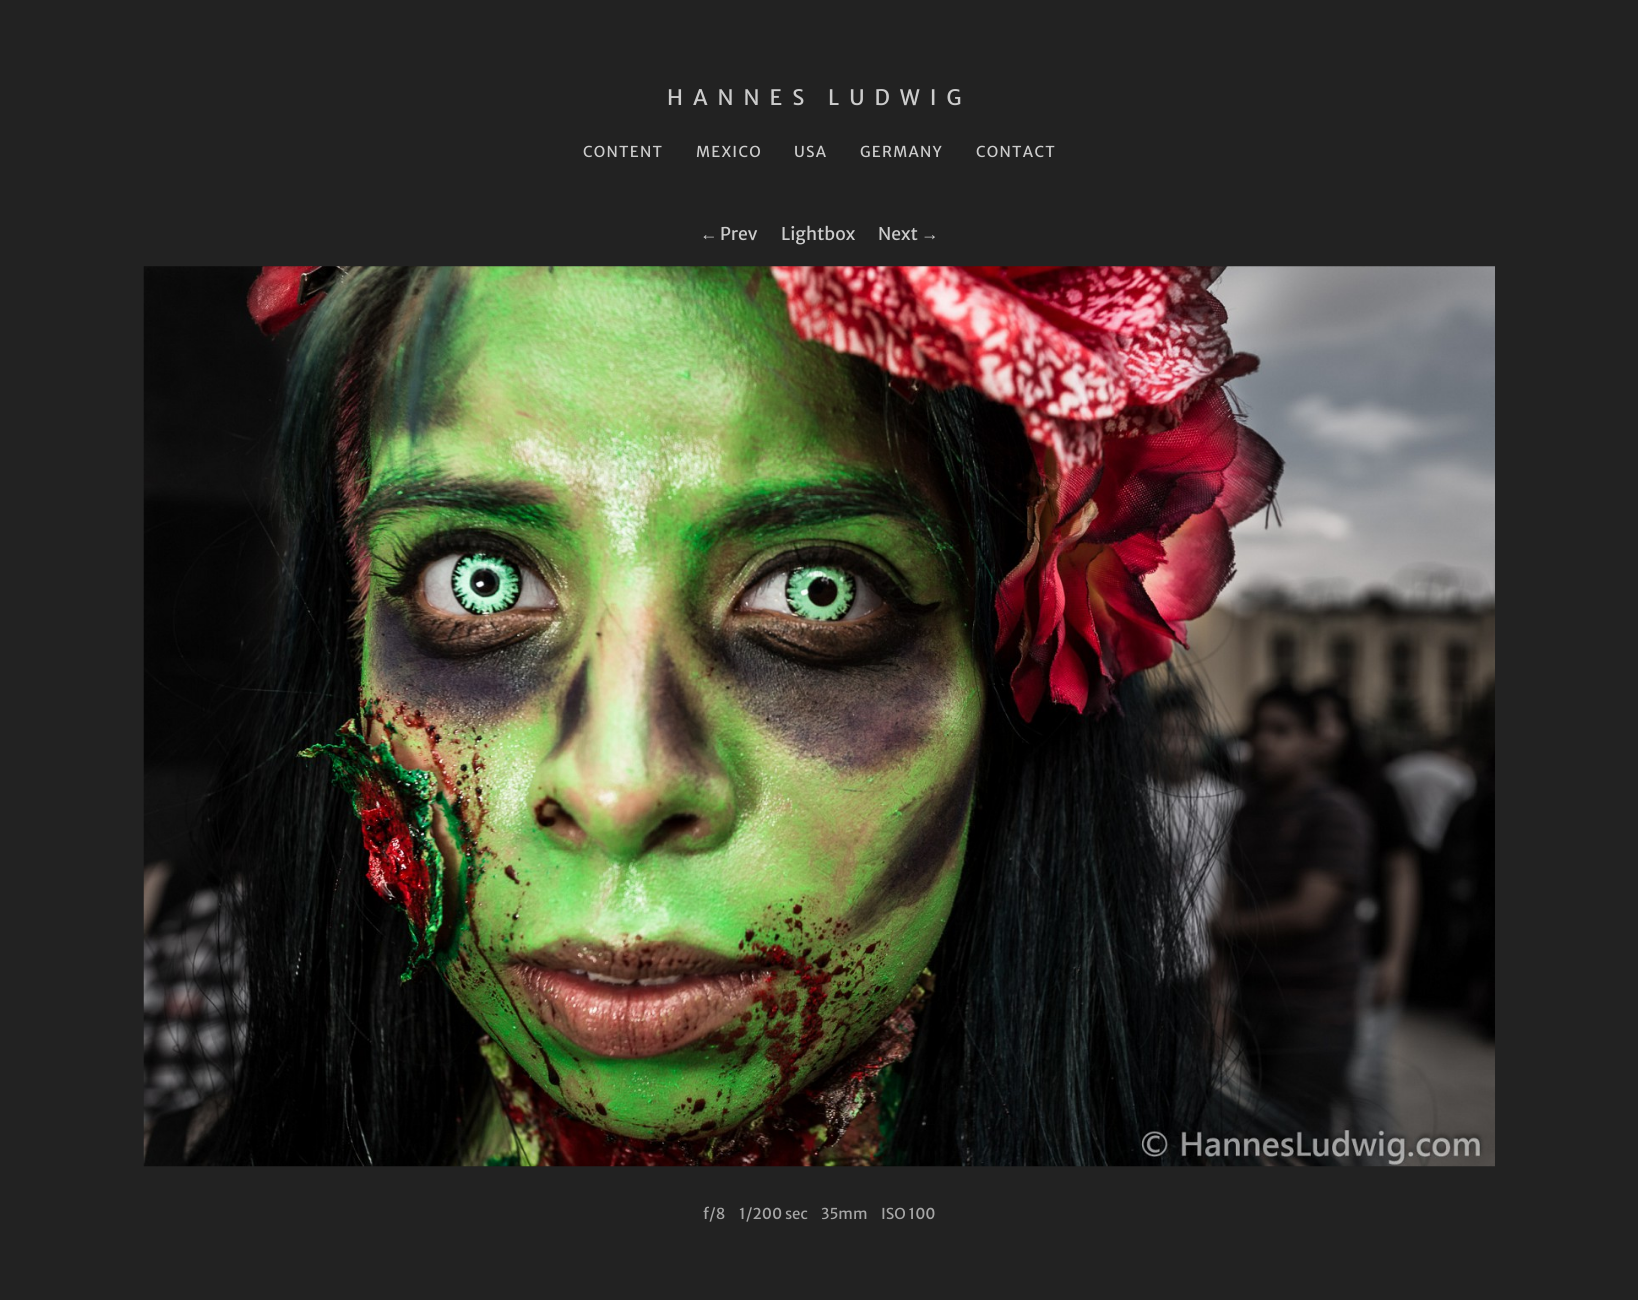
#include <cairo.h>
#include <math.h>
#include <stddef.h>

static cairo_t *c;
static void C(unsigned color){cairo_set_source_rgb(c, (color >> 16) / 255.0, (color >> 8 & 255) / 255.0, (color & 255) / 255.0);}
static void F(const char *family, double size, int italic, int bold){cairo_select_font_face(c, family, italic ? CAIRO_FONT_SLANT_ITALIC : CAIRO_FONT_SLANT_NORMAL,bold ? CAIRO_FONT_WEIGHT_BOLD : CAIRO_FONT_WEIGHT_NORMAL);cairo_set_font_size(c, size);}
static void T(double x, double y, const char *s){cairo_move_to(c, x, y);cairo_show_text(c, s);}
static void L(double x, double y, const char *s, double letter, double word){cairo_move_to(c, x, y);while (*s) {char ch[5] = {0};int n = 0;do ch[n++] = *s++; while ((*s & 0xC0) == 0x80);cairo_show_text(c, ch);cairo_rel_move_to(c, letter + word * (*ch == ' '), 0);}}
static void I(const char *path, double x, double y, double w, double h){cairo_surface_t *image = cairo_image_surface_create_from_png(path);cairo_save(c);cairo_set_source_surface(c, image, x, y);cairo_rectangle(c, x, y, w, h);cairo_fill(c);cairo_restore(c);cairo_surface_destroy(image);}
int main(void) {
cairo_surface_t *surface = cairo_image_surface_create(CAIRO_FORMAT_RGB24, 1638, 1300);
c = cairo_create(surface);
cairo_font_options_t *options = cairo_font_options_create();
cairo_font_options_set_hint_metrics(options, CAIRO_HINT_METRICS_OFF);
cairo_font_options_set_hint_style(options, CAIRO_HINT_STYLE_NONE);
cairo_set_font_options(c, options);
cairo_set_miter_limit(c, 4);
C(0x222222);
cairo_paint(c);
F("Merriweather Sans",21.25,0,0);
C(0xcccccc);
L(667,105,"HANNES LUDWIG",10,0);
F("Merriweather Sans",15,0,0);
L(583,157,"CONTENT",1.25,0);
L(696,157,"MEXICO",1.25,0);
L(794,157,"USA",1.25,0);
L(860,157,"GERMANY",1.25,0);
L(976,157,"CONTACT",1.25,0);
F("Liberation Sans",17.5,0,0);
T(700,240,"←");
F("Merriweather Sans",17.5,0,0);
T(720,240,"Prev");
T(781,240,"Lightbox");
T(878,240,"Next");
F("Liberation Sans",17.5,0,0);
T(921,240,"→");
I("1.png",143,266,1352,901);
F("Merriweather Sans",15,0,0);
C(0xa6a6a6);
T(703,1219,"f/8");
T(739,1219,"1/200 sec");
T(821,1219,"35mm");
T(881,1219,"ISO 100");
cairo_surface_write_to_png(surface, "o.png");
cairo_font_options_destroy(options);
cairo_destroy(c);
cairo_surface_destroy(surface);
return 0;
}
